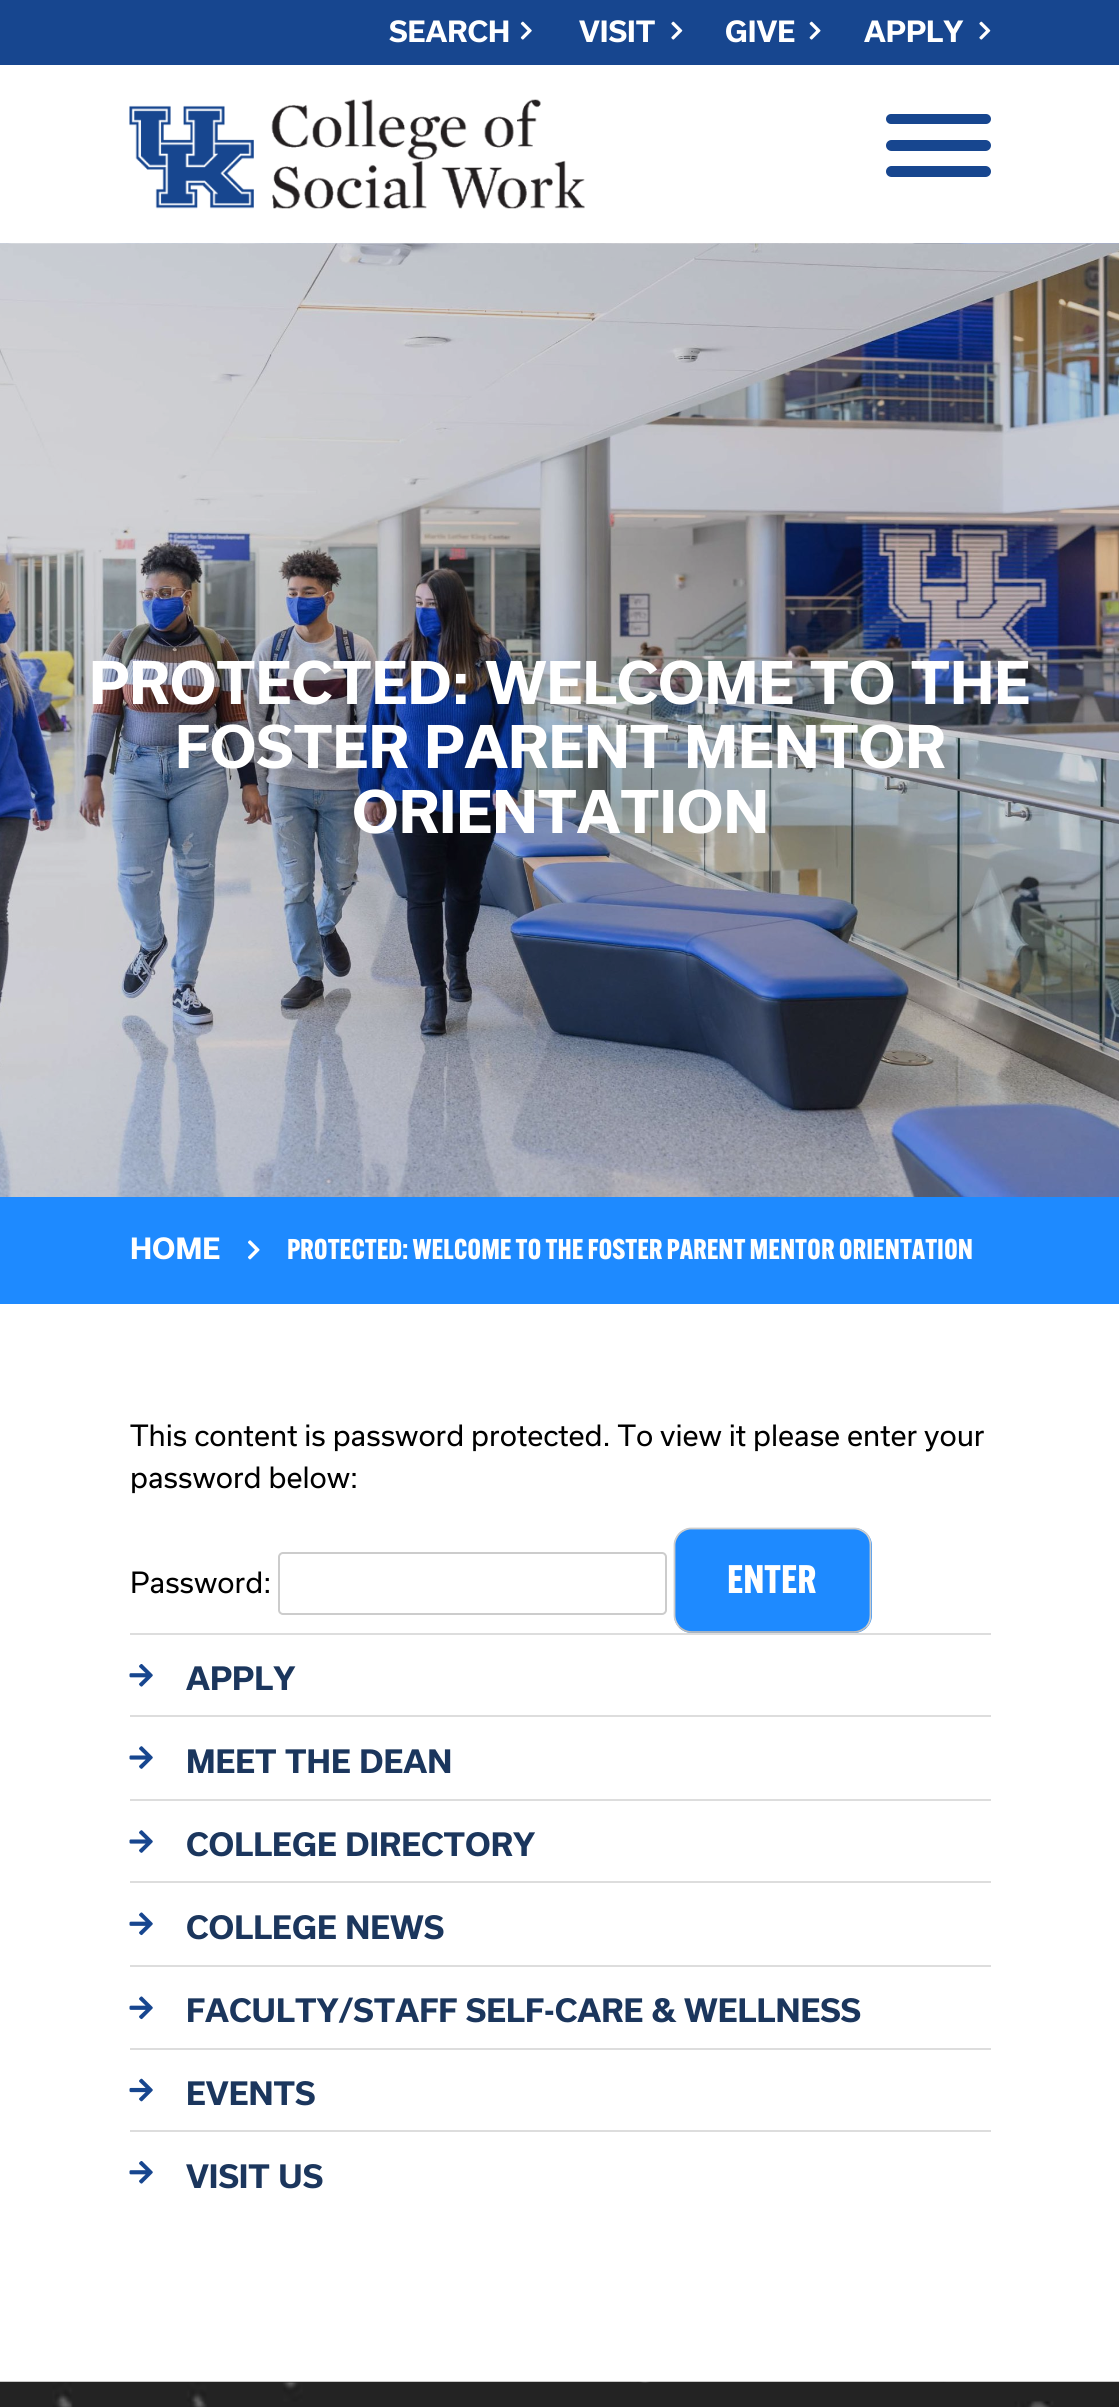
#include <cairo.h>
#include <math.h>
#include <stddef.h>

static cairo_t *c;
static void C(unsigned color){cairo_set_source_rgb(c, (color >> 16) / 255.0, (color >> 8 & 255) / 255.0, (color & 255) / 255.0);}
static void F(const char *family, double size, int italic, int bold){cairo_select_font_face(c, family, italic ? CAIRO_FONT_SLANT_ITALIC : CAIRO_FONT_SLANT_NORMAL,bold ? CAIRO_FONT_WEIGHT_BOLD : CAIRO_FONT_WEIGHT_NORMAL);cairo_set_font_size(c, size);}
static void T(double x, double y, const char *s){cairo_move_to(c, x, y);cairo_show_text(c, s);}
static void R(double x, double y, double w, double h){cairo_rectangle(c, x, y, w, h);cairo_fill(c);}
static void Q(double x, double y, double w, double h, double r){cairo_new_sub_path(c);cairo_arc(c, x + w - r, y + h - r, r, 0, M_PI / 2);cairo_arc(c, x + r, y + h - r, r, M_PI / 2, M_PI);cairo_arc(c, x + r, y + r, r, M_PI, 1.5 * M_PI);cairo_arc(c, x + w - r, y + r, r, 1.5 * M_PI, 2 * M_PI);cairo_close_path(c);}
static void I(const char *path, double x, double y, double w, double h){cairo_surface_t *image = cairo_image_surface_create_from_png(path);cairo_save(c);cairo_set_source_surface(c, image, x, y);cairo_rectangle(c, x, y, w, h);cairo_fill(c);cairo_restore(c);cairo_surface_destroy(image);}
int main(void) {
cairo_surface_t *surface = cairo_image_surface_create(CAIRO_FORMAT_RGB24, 1119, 2407);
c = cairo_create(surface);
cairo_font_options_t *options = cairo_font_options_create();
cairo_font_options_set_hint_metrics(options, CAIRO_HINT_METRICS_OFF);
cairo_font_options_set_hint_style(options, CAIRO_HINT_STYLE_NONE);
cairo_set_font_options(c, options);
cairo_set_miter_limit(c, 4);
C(0xffffff);
cairo_paint(c);
C(0x17468f);
R(0,0,1119,65);
F("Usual",28,0,1);
C(0xffffff);
T(389,42,"SEARCH");
I("1.png",520,21,12,19);
T(579,42,"VISIT");
I("2.png",671,21,12,19);
T(725,42,"GIVE");
I("3.png",809,21,12,19);
T(864,42,"APPLY");
I("2.png",979,21,12,19);
I("4.png",129,99,456,110);
C(0x17468f);
Q(886,114,105,10,5);
cairo_fill(c);
Q(886,140,105,11,5.5);
cairo_fill(c);
Q(886,166,105,11,5.5);
cairo_fill(c);
I("5.png",0,243,1119,954);
F("Usual",56,0,1);
C(0xffffff);
T(89,704,"PROTECTED: WELCOME TO THE");
T(175,768,"FOSTER PARENT MENTOR");
T(352,833,"ORIENTATION");
C(0x1e8aff);
R(0,1197,1119,107);
F("Usual",28,0,1);
C(0xffffff);
T(130,1259,"HOME");
I("6.png",248,1240,12,20);
F("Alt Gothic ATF",28,0,1);
T(287,1259,"PROTECTED: WELCOME TO THE FOSTER PARENT MENTOR ORIENTATION");
F("Usual",28,0,0);
C(0x000000);
T(130,1446,"This content is password protected. To view it please enter your");
T(130,1488,"password below:");
T(130,1593,"Password:");
Q(279,1553,387,61,4);
C(0xcccccc);
cairo_stroke(c);
C(0x1e8aff);
Q(674,1528,198,105,18);
cairo_fill(c);
cairo_new_path(c);
cairo_move_to(c,866,1627);
cairo_curve_to(c,862.5,1630,858.5,1632,854,1632);
cairo_line_to(c,691,1632);
cairo_curve_to(c,687,1632,682.5,1630,679.5,1627);
C(0xbbbbbb);
cairo_set_line_width(c,1.8);
cairo_stroke(c);
cairo_new_path(c);
cairo_move_to(c,679.5,1627);
cairo_curve_to(c,676.5,1624,674.5,1619.5,674.5,1615);
cairo_line_to(c,674.5,1545);
cairo_curve_to(c,674.5,1541,676.5,1536.5,679.5,1533.5);
cairo_curve_to(c,682.5,1530.5,687,1528.5,691,1528.5);
cairo_line_to(c,854,1528.5);
cairo_curve_to(c,858.5,1528.5,862.5,1530.5,866,1533.5);
cairo_curve_to(c,869,1536.5,870.5,1541,870.5,1545);
cairo_line_to(c,870.5,1615);
cairo_curve_to(c,870.5,1619.5,869,1624,866,1627);
C(0xcccccc);
cairo_stroke(c);
F("Alt Gothic ATF",39,0,1);
C(0xffffff);
T(727,1593,"ENTER");
C(0xdddddd);
R(130,1633,861,2);
I("7.png",129,1664,24,23);
F("Usual",30.8,0,1);
C(0x1b365d);
T(186,1690,"APPLY");
C(0xdddddd);
R(130,1715,861,2);
I("8.png",129,1746,24,23);
C(0x1b365d);
T(186,1773,"MEET THE DEAN");
C(0xdddddd);
R(130,1799,861,2);
I("8.png",129,1830,24,23);
C(0x1b365d);
T(186,1856,"COLLEGE DIRECTORY");
C(0xdddddd);
R(130,1881,861,2);
I("9.png",129,1912,24,24);
C(0x1b365d);
T(186,1939,"COLLEGE NEWS");
C(0xdddddd);
R(130,1965,861,2);
I("9.png",129,1996,24,24);
C(0x1b365d);
T(186,2022,"FACULTY/STAFF SELF-CARE & WELLNESS");
C(0xdddddd);
R(130,2048,861,2);
I("10.png",129,2078,24,24);
C(0x1b365d);
T(186,2105,"EVENTS");
C(0xdddddd);
R(130,2130,861,2);
I("7.png",129,2161,24,23);
C(0x1b365d);
T(186,2188,"VISIT US");
I("11.png",0,2381,1119,26);
cairo_surface_write_to_png(surface, "o.png");
cairo_font_options_destroy(options);
cairo_destroy(c);
cairo_surface_destroy(surface);
return 0;
}
